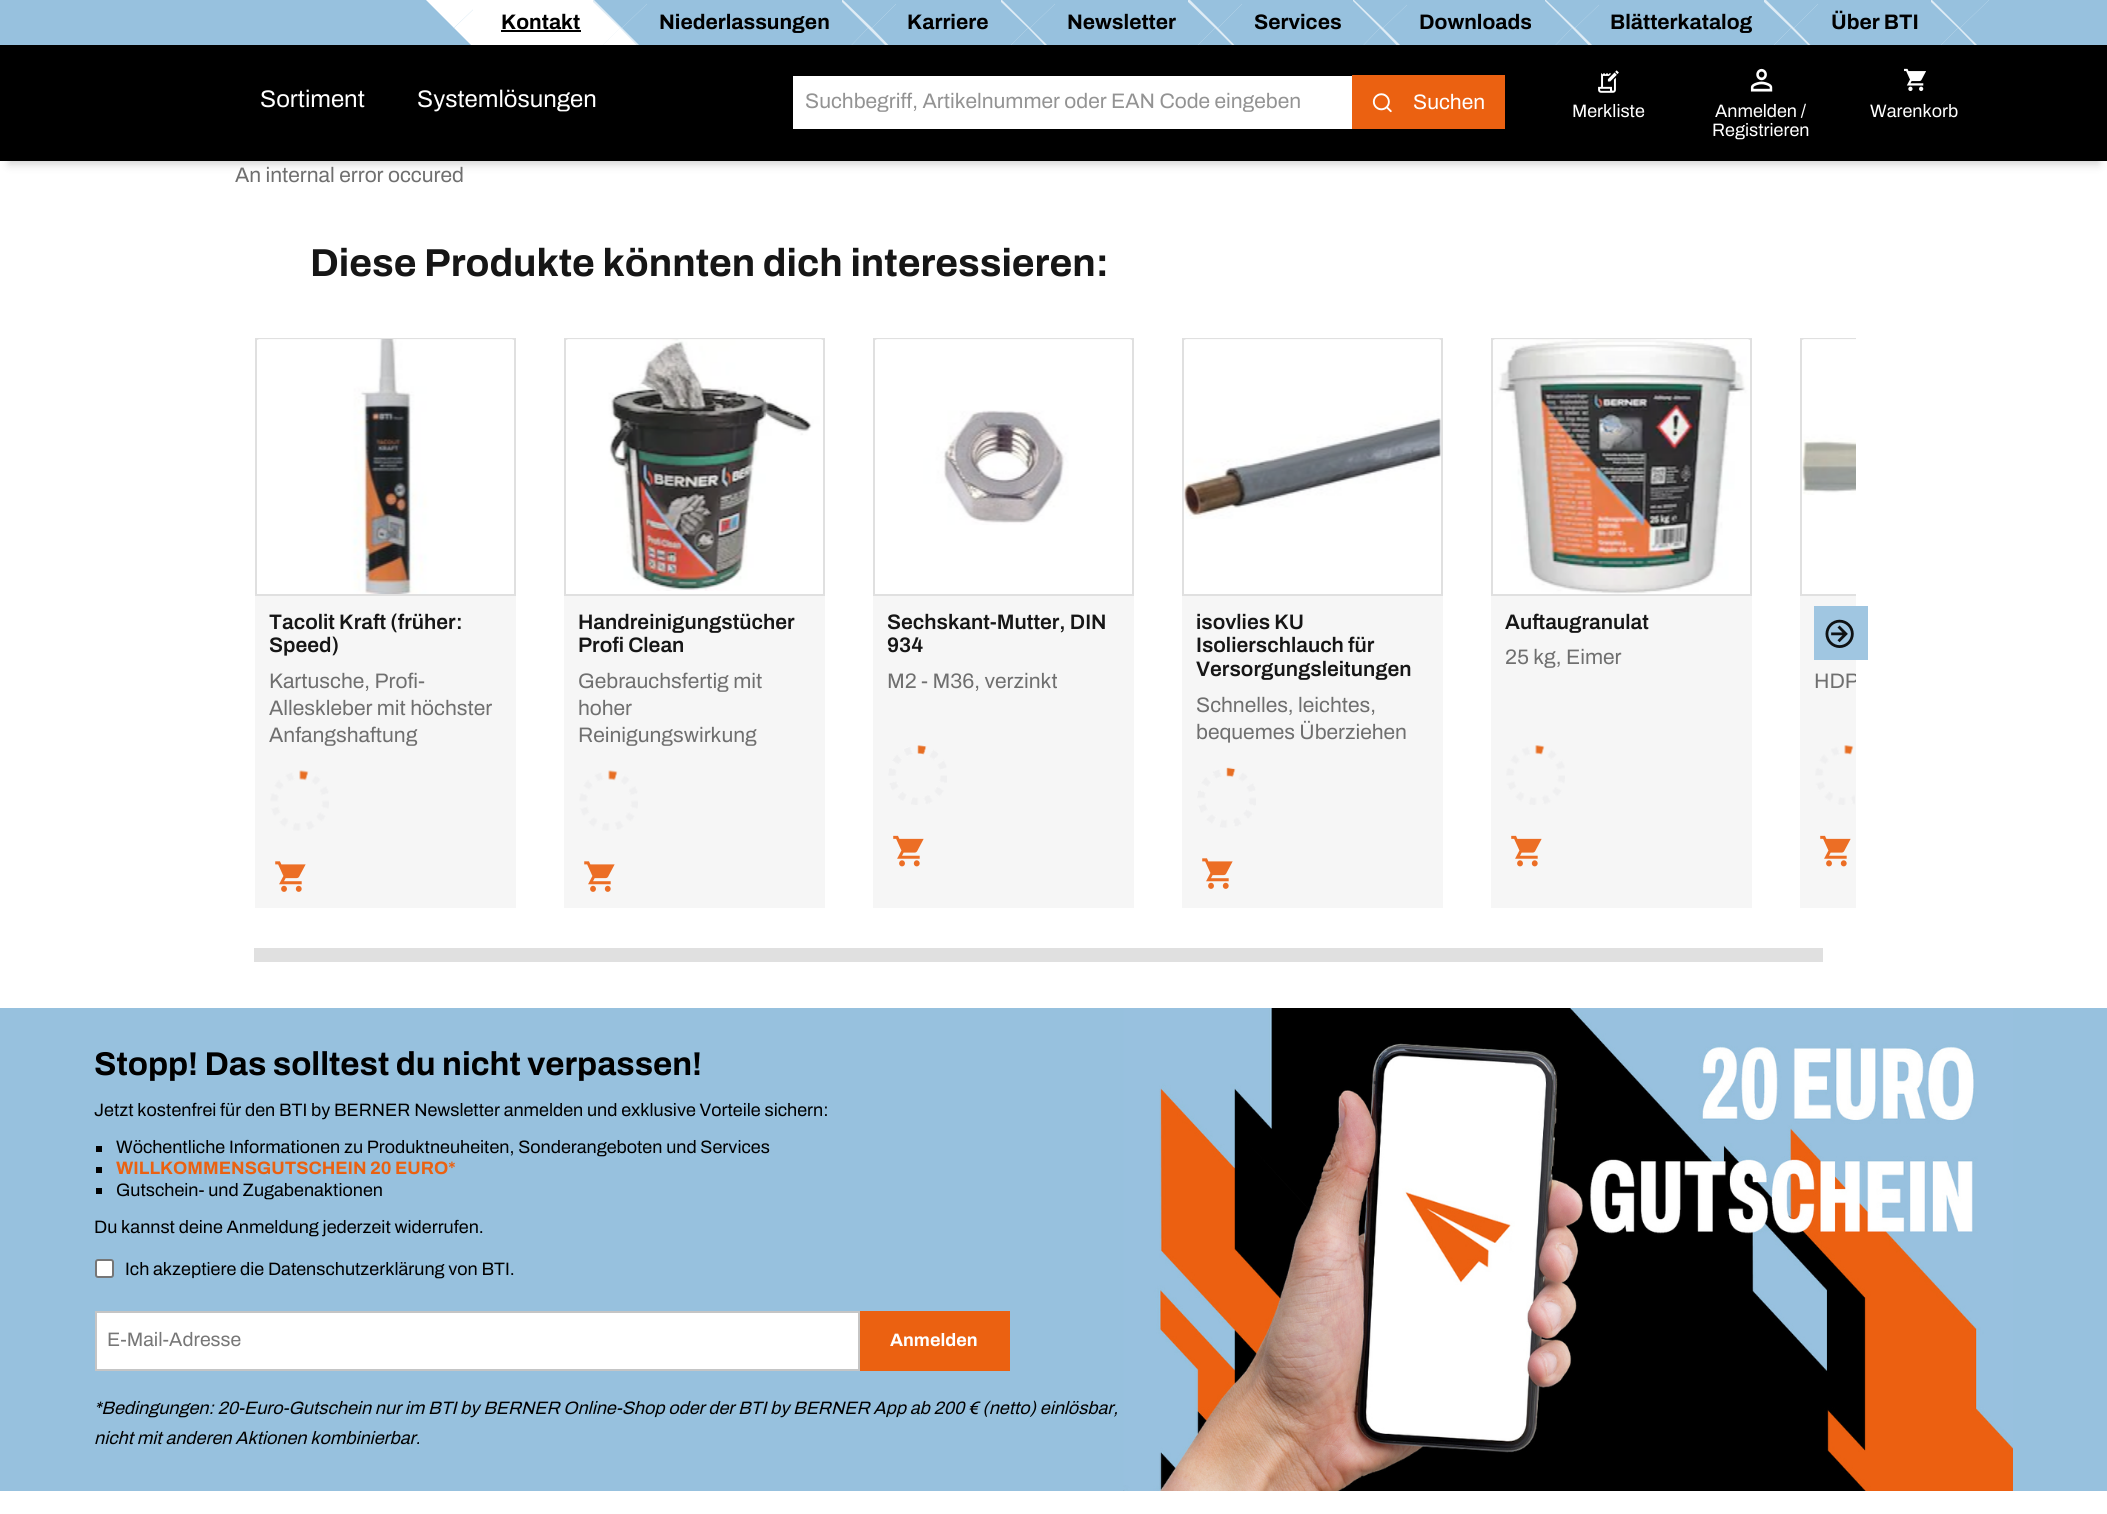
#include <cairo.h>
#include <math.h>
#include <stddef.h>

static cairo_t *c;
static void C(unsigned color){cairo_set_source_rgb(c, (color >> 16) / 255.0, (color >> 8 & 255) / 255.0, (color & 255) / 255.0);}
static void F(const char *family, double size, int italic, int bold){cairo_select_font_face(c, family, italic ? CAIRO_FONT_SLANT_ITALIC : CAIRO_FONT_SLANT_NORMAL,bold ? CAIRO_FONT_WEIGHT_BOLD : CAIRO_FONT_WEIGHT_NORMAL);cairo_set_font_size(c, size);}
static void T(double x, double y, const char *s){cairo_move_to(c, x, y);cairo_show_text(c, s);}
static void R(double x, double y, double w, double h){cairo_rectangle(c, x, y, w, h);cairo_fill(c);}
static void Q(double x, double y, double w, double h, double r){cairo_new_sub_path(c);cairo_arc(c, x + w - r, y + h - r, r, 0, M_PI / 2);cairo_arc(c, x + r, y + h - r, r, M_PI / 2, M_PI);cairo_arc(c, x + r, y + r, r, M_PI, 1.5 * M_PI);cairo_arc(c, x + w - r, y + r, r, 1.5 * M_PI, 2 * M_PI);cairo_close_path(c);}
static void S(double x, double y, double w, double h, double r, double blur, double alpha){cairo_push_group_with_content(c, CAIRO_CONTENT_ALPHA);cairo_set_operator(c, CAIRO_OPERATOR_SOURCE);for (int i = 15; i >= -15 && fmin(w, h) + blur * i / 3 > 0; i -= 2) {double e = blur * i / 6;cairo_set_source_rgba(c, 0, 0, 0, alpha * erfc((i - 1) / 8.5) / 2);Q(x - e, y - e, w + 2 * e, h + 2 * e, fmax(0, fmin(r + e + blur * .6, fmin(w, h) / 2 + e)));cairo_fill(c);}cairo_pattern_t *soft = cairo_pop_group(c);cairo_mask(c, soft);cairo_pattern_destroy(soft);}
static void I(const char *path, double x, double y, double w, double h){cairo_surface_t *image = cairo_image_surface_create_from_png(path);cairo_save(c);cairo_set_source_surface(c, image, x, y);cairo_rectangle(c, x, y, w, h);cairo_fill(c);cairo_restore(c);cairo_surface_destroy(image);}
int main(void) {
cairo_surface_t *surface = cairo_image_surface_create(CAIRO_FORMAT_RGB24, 2107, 1514);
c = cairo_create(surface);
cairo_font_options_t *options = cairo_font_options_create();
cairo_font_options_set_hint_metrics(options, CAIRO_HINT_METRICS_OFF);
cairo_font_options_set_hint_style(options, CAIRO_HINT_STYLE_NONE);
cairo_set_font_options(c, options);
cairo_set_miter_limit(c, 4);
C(0xffffff);
cairo_paint(c);
C(0x000000);
S(9,21,2090,143,0,4.5,.18);
C(0x97c1de);
R(0,0,2107,45);
C(0xdfecf5);
R(593,0,1396,45);
C(0xffffff);
R(473,0,120,45);
cairo_new_path(c);
cairo_move_to(c,426,0);
cairo_line_to(c,483,0);
cairo_line_to(c,454,28);
cairo_close_path(c);
cairo_fill(c);
cairo_new_path(c);
cairo_move_to(c,483,0);
cairo_line_to(c,483,57);
cairo_line_to(c,454,28);
cairo_close_path(c);
cairo_fill(c);
F("Archivo",21,0,1);
C(0x000000);
T(501,29,"Kontakt");
R(501,30,80,2);
C(0xffffff);
cairo_new_path(c);
cairo_move_to(c,648,57);
cairo_line_to(c,591,57);
cairo_line_to(c,620,28);
cairo_close_path(c);
cairo_fill(c);
cairo_new_path(c);
cairo_move_to(c,591,57);
cairo_line_to(c,591,0);
cairo_line_to(c,620,28);
cairo_close_path(c);
cairo_fill(c);
C(0x97c1de);
R(647,0,195,45);
cairo_new_path(c);
cairo_move_to(c,594,0);
cairo_line_to(c,651,0);
cairo_line_to(c,622,28);
cairo_close_path(c);
cairo_fill(c);
cairo_new_path(c);
cairo_move_to(c,651,0);
cairo_line_to(c,651,57);
cairo_line_to(c,622,28);
cairo_close_path(c);
cairo_fill(c);
C(0x000000);
T(659,29,"Niederlassungen");
C(0x97c1de);
cairo_new_path(c);
cairo_move_to(c,897,57);
cairo_line_to(c,840,57);
cairo_line_to(c,868,28);
cairo_close_path(c);
cairo_fill(c);
cairo_new_path(c);
cairo_move_to(c,840,57);
cairo_line_to(c,840,0);
cairo_line_to(c,868,28);
cairo_close_path(c);
cairo_fill(c);
R(896,0,105,45);
cairo_new_path(c);
cairo_move_to(c,843,0);
cairo_line_to(c,900,0);
cairo_line_to(c,872,28);
cairo_close_path(c);
cairo_fill(c);
cairo_new_path(c);
cairo_move_to(c,900,0);
cairo_line_to(c,900,57);
cairo_line_to(c,872,28);
cairo_close_path(c);
cairo_fill(c);
C(0x000000);
T(907,29,"Karriere");
C(0x97c1de);
cairo_new_path(c);
cairo_move_to(c,1056,57);
cairo_line_to(c,999,57);
cairo_line_to(c,1028,28);
cairo_close_path(c);
cairo_fill(c);
cairo_new_path(c);
cairo_move_to(c,999,57);
cairo_line_to(c,999,0);
cairo_line_to(c,1028,28);
cairo_close_path(c);
cairo_fill(c);
R(1055,0,133,45);
cairo_new_path(c);
cairo_move_to(c,1002,0);
cairo_line_to(c,1059,0);
cairo_line_to(c,1030,28);
cairo_close_path(c);
cairo_fill(c);
cairo_new_path(c);
cairo_move_to(c,1059,0);
cairo_line_to(c,1059,57);
cairo_line_to(c,1030,28);
cairo_close_path(c);
cairo_fill(c);
C(0x000000);
T(1067,29,"Newsletter");
C(0x97c1de);
cairo_new_path(c);
cairo_move_to(c,1244,57);
cairo_line_to(c,1186,57);
cairo_line_to(c,1215,28);
cairo_close_path(c);
cairo_fill(c);
cairo_new_path(c);
cairo_move_to(c,1186,57);
cairo_line_to(c,1186,0);
cairo_line_to(c,1215,28);
cairo_close_path(c);
cairo_fill(c);
R(1242,0,111,45);
cairo_new_path(c);
cairo_move_to(c,1190,0);
cairo_line_to(c,1246,0);
cairo_line_to(c,1218,28);
cairo_close_path(c);
cairo_fill(c);
cairo_new_path(c);
cairo_move_to(c,1246,0);
cairo_line_to(c,1246,57);
cairo_line_to(c,1218,28);
cairo_close_path(c);
cairo_fill(c);
C(0x000000);
T(1254,29,"Services");
C(0x97c1de);
cairo_new_path(c);
cairo_move_to(c,1408,57);
cairo_line_to(c,1352,57);
cairo_line_to(c,1380,28);
cairo_close_path(c);
cairo_fill(c);
cairo_new_path(c);
cairo_move_to(c,1352,57);
cairo_line_to(c,1352,0);
cairo_line_to(c,1380,28);
cairo_close_path(c);
cairo_fill(c);
R(1407,0,138,45);
cairo_new_path(c);
cairo_move_to(c,1354,0);
cairo_line_to(c,1412,0);
cairo_line_to(c,1383,28);
cairo_close_path(c);
cairo_fill(c);
cairo_new_path(c);
cairo_move_to(c,1412,0);
cairo_line_to(c,1412,57);
cairo_line_to(c,1383,28);
cairo_close_path(c);
cairo_fill(c);
C(0x000000);
T(1419,29,"Downloads");
C(0x97c1de);
cairo_new_path(c);
cairo_move_to(c,1600,57);
cairo_line_to(c,1544,57);
cairo_line_to(c,1572,28);
cairo_close_path(c);
cairo_fill(c);
cairo_new_path(c);
cairo_move_to(c,1544,57);
cairo_line_to(c,1544,0);
cairo_line_to(c,1572,28);
cairo_close_path(c);
cairo_fill(c);
R(1599,0,165,45);
cairo_new_path(c);
cairo_move_to(c,1546,0);
cairo_line_to(c,1604,0);
cairo_line_to(c,1575,28);
cairo_close_path(c);
cairo_fill(c);
cairo_new_path(c);
cairo_move_to(c,1604,0);
cairo_line_to(c,1604,57);
cairo_line_to(c,1575,28);
cairo_close_path(c);
cairo_fill(c);
C(0x000000);
T(1610,29,"Blätterkatalog");
C(0x97c1de);
cairo_new_path(c);
cairo_move_to(c,1820,57);
cairo_line_to(c,1762,57);
cairo_line_to(c,1791,28);
cairo_close_path(c);
cairo_fill(c);
cairo_new_path(c);
cairo_move_to(c,1762,57);
cairo_line_to(c,1762,0);
cairo_line_to(c,1791,28);
cairo_close_path(c);
cairo_fill(c);
R(1818,0,113,45);
cairo_new_path(c);
cairo_move_to(c,1766,0);
cairo_line_to(c,1822,0);
cairo_line_to(c,1794,28);
cairo_close_path(c);
cairo_fill(c);
cairo_new_path(c);
cairo_move_to(c,1822,0);
cairo_line_to(c,1822,57);
cairo_line_to(c,1794,28);
cairo_close_path(c);
cairo_fill(c);
C(0x000000);
T(1831,29,"Über BTI");
C(0x97c1de);
cairo_new_path(c);
cairo_move_to(c,1986,57);
cairo_line_to(c,1929,57);
cairo_line_to(c,1958,28);
cairo_close_path(c);
cairo_fill(c);
cairo_new_path(c);
cairo_move_to(c,1929,57);
cairo_line_to(c,1929,0);
cairo_line_to(c,1958,28);
cairo_close_path(c);
cairo_fill(c);
cairo_new_path(c);
cairo_move_to(c,1932,0);
cairo_line_to(c,1989,0);
cairo_line_to(c,1960,28);
cairo_close_path(c);
cairo_fill(c);
cairo_new_path(c);
cairo_move_to(c,1989,0);
cairo_line_to(c,1989,57);
cairo_line_to(c,1960,28);
cairo_close_path(c);
cairo_fill(c);
C(0x000000);
R(0,45,2107,116);
F("Archivo",24,0,0);
C(0xffffff);
T(260,107,"Sortiment");
T(417,107,"Systemlösungen");
R(793,76,559,53);
F("Archivo",21,0,0);
C(0x939393);
T(805,108,"Suchbegriff, Artikelnummer oder EAN Code eingeben");
C(0xeb6111);
R(1352,75,153,54);
I("1.png",1372,93,20,20);
C(0xffffff);
T(1413,109,"Suchen");
I("2.png",1598,70,21,23);
F("Archivo",18,0,0);
T(1572,117,"Merkliste");
I("3.png",1750,68,23,24);
T(1715,117,"Anmelden /");
T(1712,136,"Registrieren");
I("4.png",1904,68,22,24);
T(1870,117,"Warenkorb");
F("Archivo",21,0,0);
C(0x6f6f6f);
T(235,182,"An internal error occured");
F("Archivo",39,0,1);
C(0x161616);
T(310,276,"Diese Produkte könnten dich interessieren:");
C(0xf6f6f6);
R(1800,596,56,312);
C(0xa0c6e1);
R(1814,606,54,54);
I("5.png",1825,619,29,29);
C(0xf6f6f6);
R(255,596,261,312);
cairo_rectangle(c,256,339,259,256);
C(0xe0e0e0);
cairo_stroke(c);
I("6.png",257,339,257,255);
F("Archivo SemiBold",21,0,0);
C(0x161616);
T(269,629,"Tacolit Kraft (früher:");
T(269,652,"Speed)");
F("Archivo",21,0,0);
C(0x6f6f6f);
T(269,688,"Kartusche, Profi-");
T(269,715,"Alleskleber mit höchster");
T(269,742,"Anfangshaftung");
I("7.png",270,770,59,61);
I("8.png",275,861,31,31);
C(0xf6f6f6);
R(564,596,261,312);
cairo_rectangle(c,565,339,259,256);
C(0xe0e0e0);
cairo_stroke(c);
I("9.png",566,339,257,252);
F("Archivo SemiBold",21,0,0);
C(0x161616);
T(578,629,"Handreinigungstücher");
T(578,652,"Profi Clean");
F("Archivo",21,0,0);
C(0x6f6f6f);
T(578,688,"Gebrauchsfertig mit");
T(578,715,"hoher");
T(578,742,"Reinigungswirkung");
I("7.png",579,770,59,61);
I("8.png",584,861,31,31);
C(0xf6f6f6);
R(873,596,261,312);
cairo_rectangle(c,874,339,259,256);
C(0xe0e0e0);
cairo_stroke(c);
I("10.png",875,339,257,186);
F("Archivo SemiBold",21,0,0);
C(0x161616);
T(887,629,"Sechskant-Mutter, DIN");
T(887,652,"934");
F("Archivo",21,0,0);
C(0x6f6f6f);
T(887,688,"M2 - M36, verzinkt");
I("11.png",888,745,59,60);
I("12.png",893,835,31,32);
C(0xf6f6f6);
R(1182,596,261,312);
cairo_rectangle(c,1183,339,259,256);
C(0xe0e0e0);
cairo_stroke(c);
I("13.png",1184,339,257,180);
F("Archivo SemiBold",21,0,0);
C(0x161616);
T(1196,629,"isovlies KU");
T(1196,652,"Isolierschlauch für");
T(1196,676,"Versorgungsleitungen");
F("Archivo",21,0,0);
C(0x6f6f6f);
T(1196,712,"Schnelles, leichtes,");
T(1196,739,"bequemes Überziehen");
I("14.png",1197,767,59,61);
I("8.png",1202,858,31,31);
C(0xf6f6f6);
R(1491,596,261,312);
cairo_rectangle(c,1492,339,259,256);
C(0xe0e0e0);
cairo_stroke(c);
I("15.png",1493,339,257,255);
F("Archivo SemiBold",21,0,0);
C(0x161616);
T(1505,629,"Auftaugranulat");
F("Archivo",21,0,0);
C(0x6f6f6f);
T(1505,664,"25 kg, Eimer");
I("16.png",1506,745,59,60);
I("12.png",1511,835,31,32);
cairo_save(c);
cairo_rectangle(c,254,336,1602,596);
cairo_clip(c);
cairo_rectangle(c,1801,339,259,256);
C(0xe0e0e0);
cairo_stroke(c);
cairo_restore(c);
I("17.png",1802,339,54,156);
cairo_save(c);
cairo_rectangle(c,1815,669,41,27);
cairo_clip(c);
T(1814,688,"HDP");
cairo_restore(c);
I("18.png",1815,745,40,60);
I("12.png",1820,835,31,32);
C(0xe0e0e0);
R(254,948,1569,14);
C(0x97c1de);
R(0,1008,2107,483);
F("Archivo",33,0,1);
C(0x000000);
T(94,1075,"Stopp! Das solltest du nicht verpassen!");
F("Archivo",18,0,0);
T(94,1116,"Jetzt kostenfrei für den BTI by BERNER Newsletter anmelden und exklusive Vorteile sichern:");
R(96,1146,6,6);
T(116,1153,"Wöchentliche Informationen zu Produktneuheiten, Sonderangeboten und Services");
R(96,1167,6,6);
F("Archivo",18,0,1);
C(0xeb6111);
T(116,1174,"WILLKOMMENSGUTSCHEIN 20 EURO*");
C(0x000000);
R(96,1188,6,6);
F("Archivo",18,0,0);
T(116,1196,"Gutschein- und Zugabenaktionen");
T(94,1233,"Du kannst deine Anmeldung jederzeit widerrufen.");
C(0xffffff);
Q(96,1260,17,17,2);
cairo_fill_preserve(c);
C(0x767676);
cairo_stroke(c);
C(0x000000);
T(125,1275,"Ich akzeptiere die Datenschutzerklärung von BTI.");
C(0xffffff);
cairo_rectangle(c,96,1312,763,58);
cairo_fill_preserve(c);
C(0xc5c5c5);
cairo_stroke(c);
F("Archivo",19.5,0,0);
C(0x777777);
T(107,1346,"E-Mail-Adresse");
C(0xeb6111);
R(860,1311,150,60);
F("Archivo",18,0,1);
C(0xffffff);
T(890,1346,"Anmelden");
F("Archivo",18,1,0);
C(0x000000);
T(94,1414,"*Bedingungen: 20-Euro-Gutschein nur im BTI by BERNER Online-Shop oder der BTI by BERNER App ab 200 € (netto) einlösbar,");
T(94,1444,"nicht mit anderen Aktionen kombinierbar.");
I("19.png",1123,1008,890,483);
cairo_surface_write_to_png(surface, "o.png");
cairo_font_options_destroy(options);
cairo_destroy(c);
cairo_surface_destroy(surface);
return 0;
}
